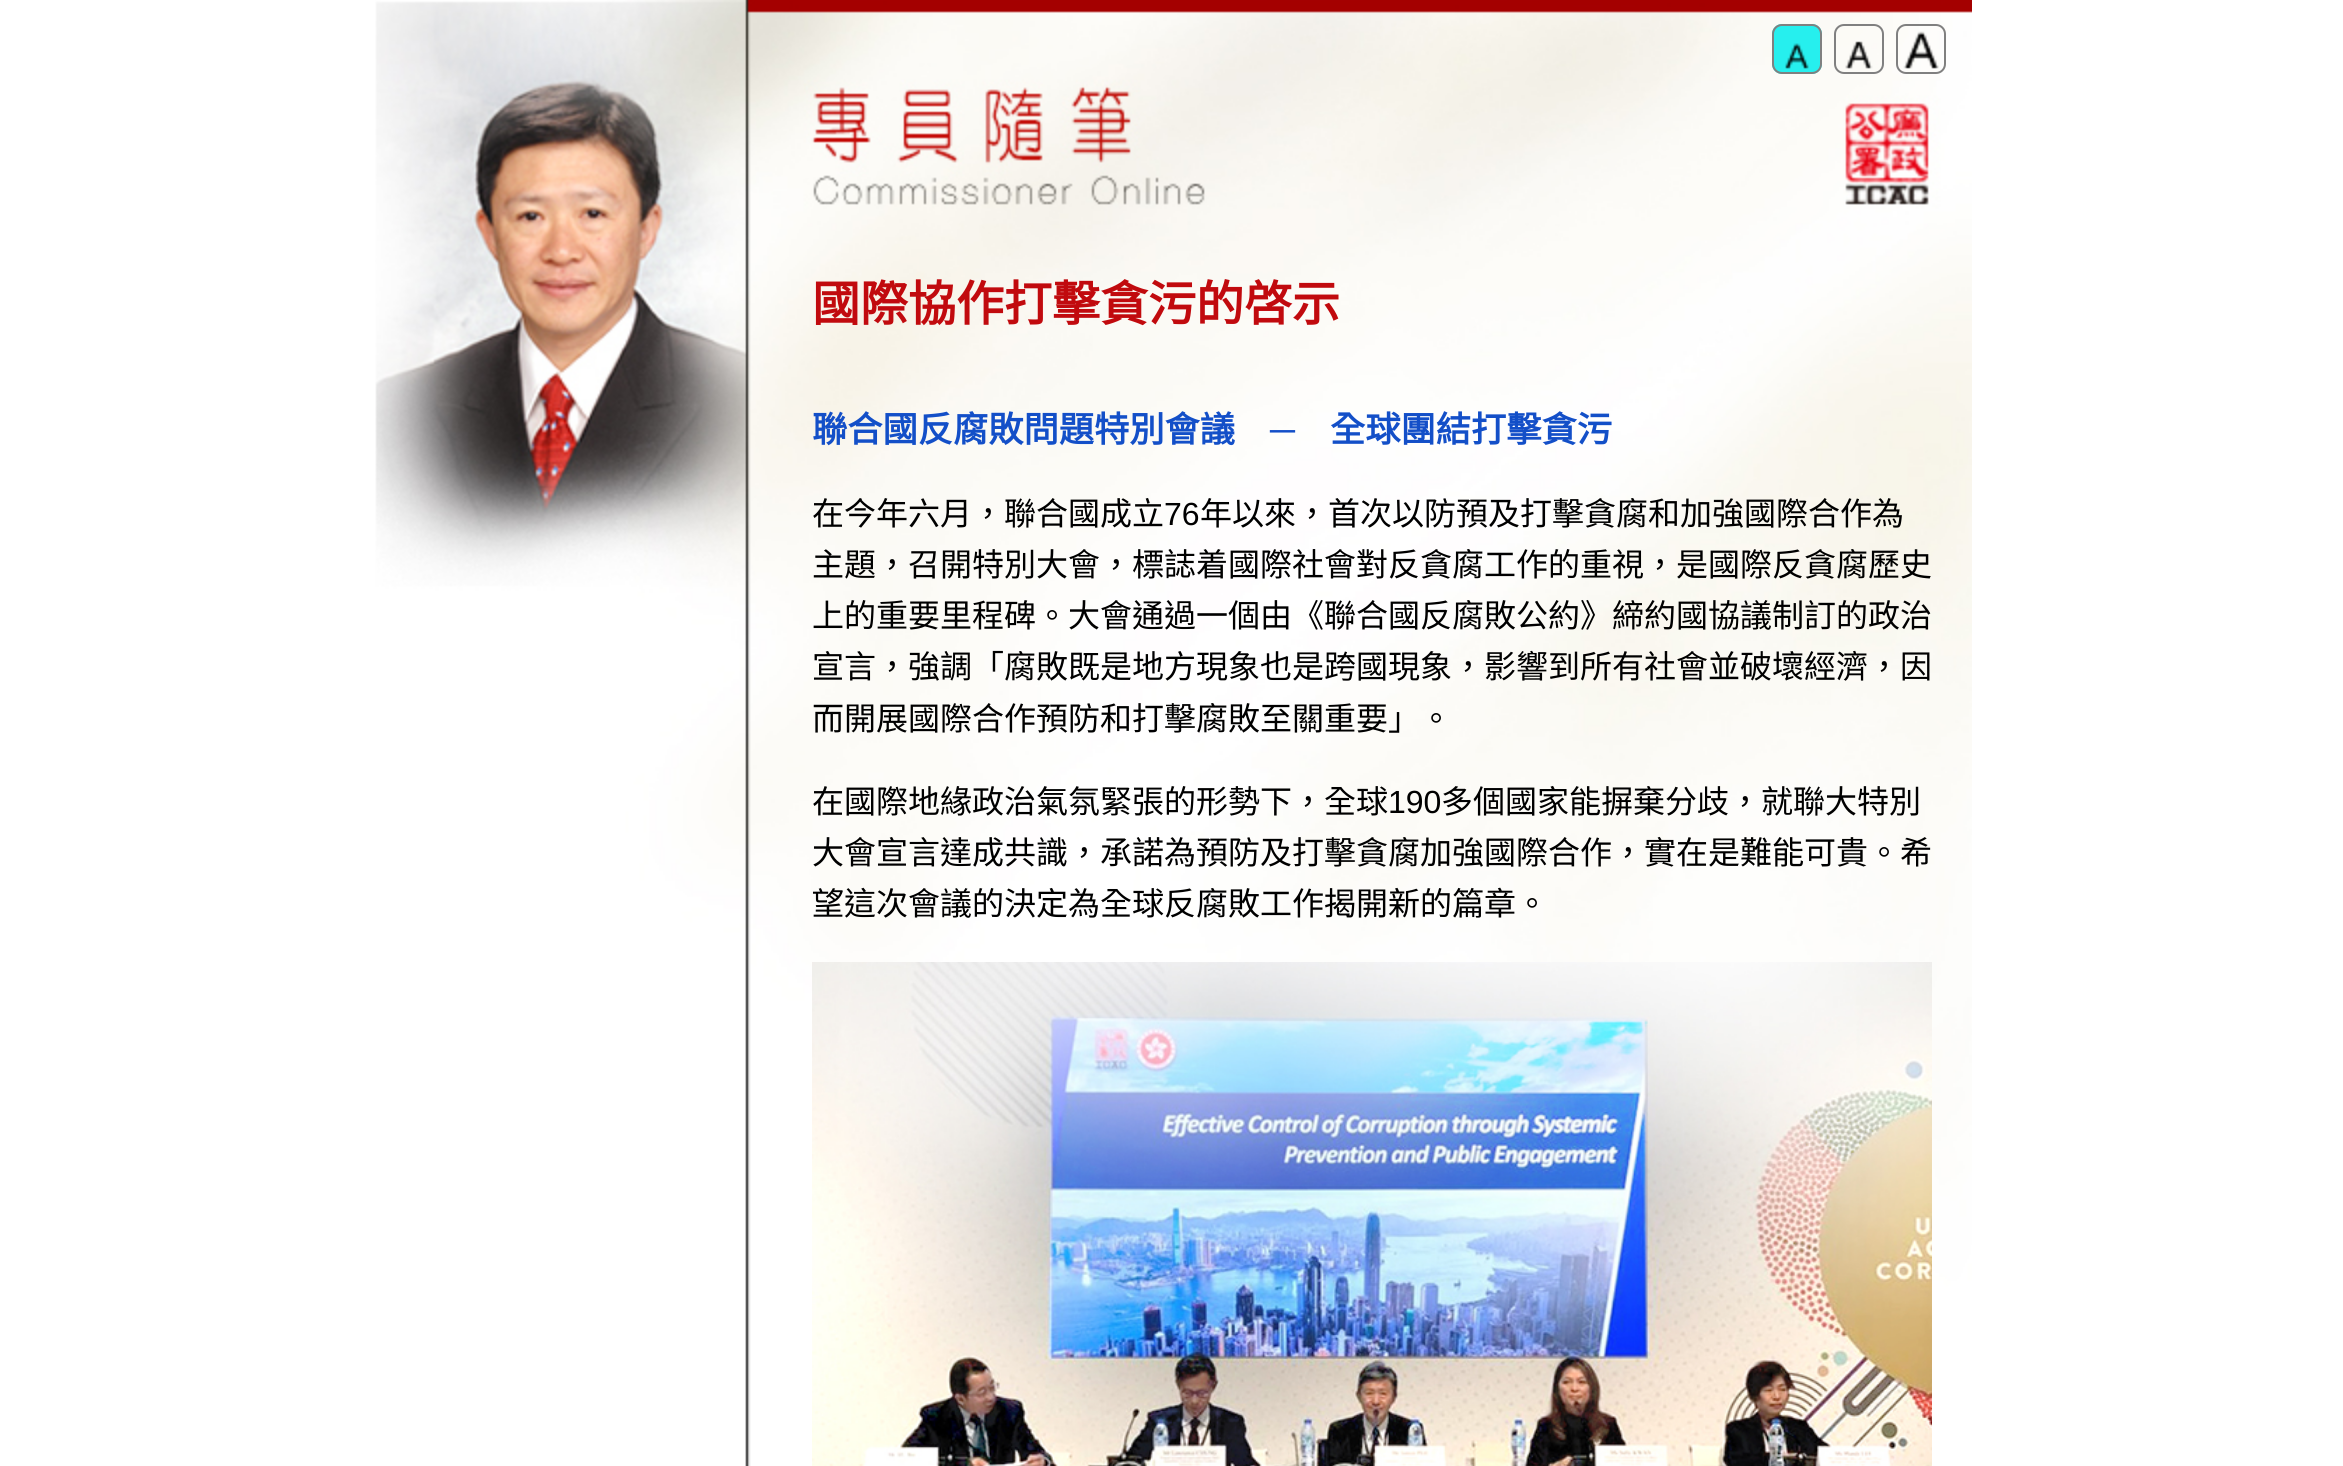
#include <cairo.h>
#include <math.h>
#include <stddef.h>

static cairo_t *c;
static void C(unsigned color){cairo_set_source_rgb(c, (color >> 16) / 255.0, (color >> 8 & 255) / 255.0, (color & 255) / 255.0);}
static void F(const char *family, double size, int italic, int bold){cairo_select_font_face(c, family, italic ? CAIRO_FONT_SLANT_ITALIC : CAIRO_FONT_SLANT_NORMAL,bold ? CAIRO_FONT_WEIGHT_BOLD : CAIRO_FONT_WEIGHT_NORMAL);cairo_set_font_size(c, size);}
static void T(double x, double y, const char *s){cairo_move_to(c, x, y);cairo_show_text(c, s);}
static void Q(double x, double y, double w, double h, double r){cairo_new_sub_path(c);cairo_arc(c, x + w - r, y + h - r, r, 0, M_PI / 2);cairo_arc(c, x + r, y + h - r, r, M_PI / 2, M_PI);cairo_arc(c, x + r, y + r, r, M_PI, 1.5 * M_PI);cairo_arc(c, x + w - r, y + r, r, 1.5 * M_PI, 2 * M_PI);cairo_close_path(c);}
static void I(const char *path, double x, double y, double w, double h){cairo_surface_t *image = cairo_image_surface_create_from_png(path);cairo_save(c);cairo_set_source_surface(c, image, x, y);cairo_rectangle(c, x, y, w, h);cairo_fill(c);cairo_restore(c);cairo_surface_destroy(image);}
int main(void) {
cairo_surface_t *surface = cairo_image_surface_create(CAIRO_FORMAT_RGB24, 2343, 1466);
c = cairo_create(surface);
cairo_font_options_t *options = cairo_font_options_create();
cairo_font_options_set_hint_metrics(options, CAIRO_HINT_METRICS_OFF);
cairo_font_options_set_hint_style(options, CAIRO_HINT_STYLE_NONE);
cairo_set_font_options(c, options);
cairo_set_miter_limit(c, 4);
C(0xffffff);
cairo_paint(c);
I("1.png",375,0,1597,1466);
C(0x26efee);
Q(1772,24,50,50,10);
cairo_fill(c);
I("2.png",1785,43,24,26);
Q(1773,25,48,48,9);
C(0x808080);
cairo_stroke(c);
I("3.png",1845,41,28,28);
Q(1835,25,48,48,9);
cairo_stroke(c);
I("4.png",1903,31,36,38);
Q(1897,25,48,48,9);
cairo_stroke(c);
F("Noto Sans CJK HK",48,0,1);
C(0xc10a0e);
T(812,321,"國際協作打擊貪污的啓示");
F("Noto Sans CJK HK",35.25,0,1);
C(0x134fc8);
T(812,442,"聯合國反腐敗問題特別會議");
F("Liberation Sans",35.25,0,1);
T(1270,442,"─");
F("Noto Sans CJK HK",35.25,0,1);
T(1330,442,"全球團結打擊貪污");
F("Noto Sans CJK HK",32,0,0);
C(0x000000);
T(812,525,"在今年六月，聯合國成立");
F("Liberation Sans",32,0,0);
T(1164,525,"76");
F("Noto Sans CJK HK",32,0,0);
T(1200,525,"年以來，首次以防預及打擊貪腐和加強國際合作為");
T(812,576,"主題，召開特別大會，標誌着國際社會對反貪腐工作的重視，是國際反貪腐歷史");
T(812,627,"上的重要里程碑。大會通過一個由《聯合國反腐敗公約》締約國協議制訂的政治");
T(812,678,"宣言，強調「腐敗既是地方現象也是跨國現象，影響到所有社會並破壞經濟，因");
T(812,730,"而開展國際合作預防和打擊腐敗至關重要」。");
T(812,813,"在國際地緣政治氣氛緊張的形勢下，全球");
F("Liberation Sans",32,0,0);
T(1388,813,"190");
F("Noto Sans CJK HK",32,0,0);
T(1441,813,"多個國家能摒棄分歧，就聯大特別");
T(812,864,"大會宣言達成共識，承諾為預防及打擊貪腐加強國際合作，實在是難能可貴。希");
T(812,915,"望這次會議的決定為全球反腐敗工作揭開新的篇章。");
I("5.png",812,962,1120,504);
cairo_surface_write_to_png(surface, "o.png");
cairo_font_options_destroy(options);
cairo_destroy(c);
cairo_surface_destroy(surface);
return 0;
}
